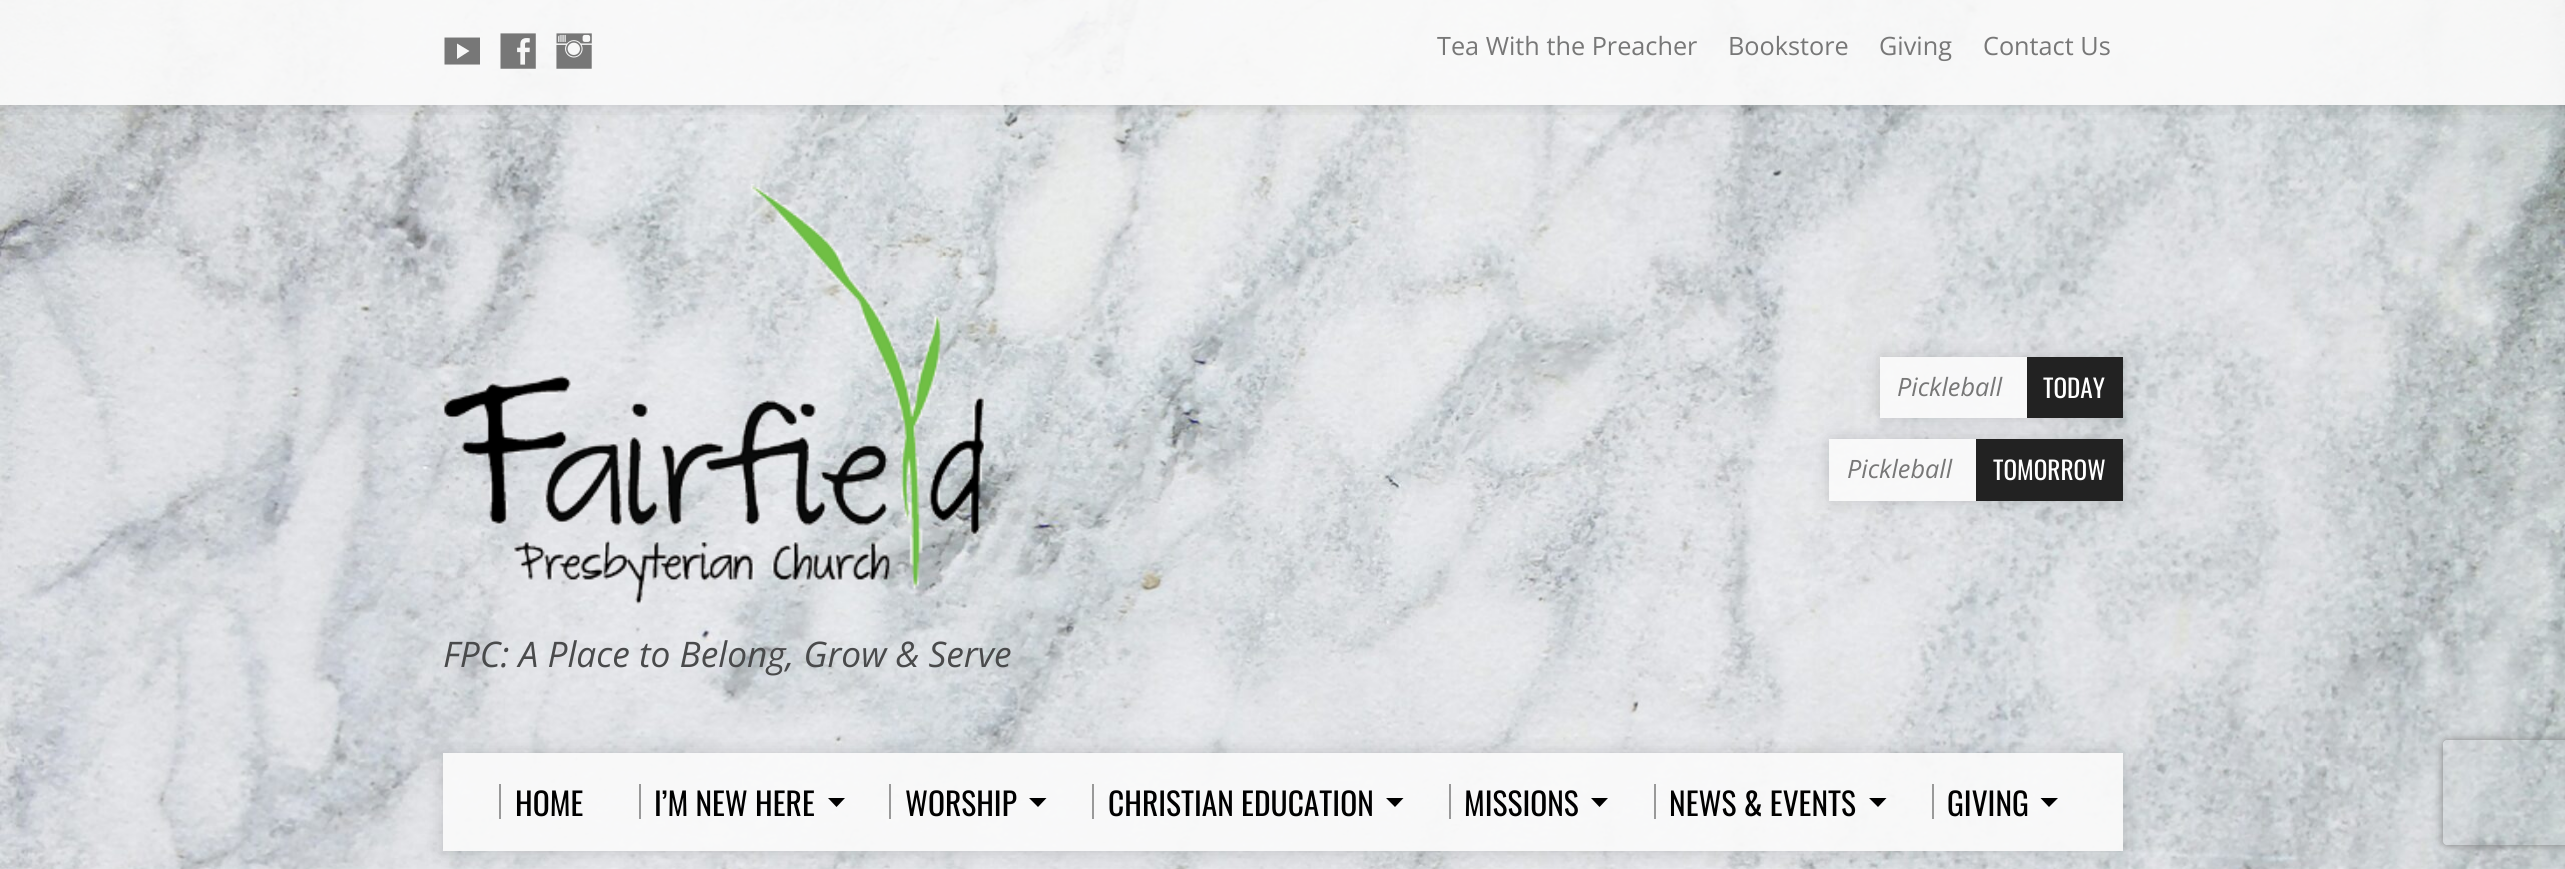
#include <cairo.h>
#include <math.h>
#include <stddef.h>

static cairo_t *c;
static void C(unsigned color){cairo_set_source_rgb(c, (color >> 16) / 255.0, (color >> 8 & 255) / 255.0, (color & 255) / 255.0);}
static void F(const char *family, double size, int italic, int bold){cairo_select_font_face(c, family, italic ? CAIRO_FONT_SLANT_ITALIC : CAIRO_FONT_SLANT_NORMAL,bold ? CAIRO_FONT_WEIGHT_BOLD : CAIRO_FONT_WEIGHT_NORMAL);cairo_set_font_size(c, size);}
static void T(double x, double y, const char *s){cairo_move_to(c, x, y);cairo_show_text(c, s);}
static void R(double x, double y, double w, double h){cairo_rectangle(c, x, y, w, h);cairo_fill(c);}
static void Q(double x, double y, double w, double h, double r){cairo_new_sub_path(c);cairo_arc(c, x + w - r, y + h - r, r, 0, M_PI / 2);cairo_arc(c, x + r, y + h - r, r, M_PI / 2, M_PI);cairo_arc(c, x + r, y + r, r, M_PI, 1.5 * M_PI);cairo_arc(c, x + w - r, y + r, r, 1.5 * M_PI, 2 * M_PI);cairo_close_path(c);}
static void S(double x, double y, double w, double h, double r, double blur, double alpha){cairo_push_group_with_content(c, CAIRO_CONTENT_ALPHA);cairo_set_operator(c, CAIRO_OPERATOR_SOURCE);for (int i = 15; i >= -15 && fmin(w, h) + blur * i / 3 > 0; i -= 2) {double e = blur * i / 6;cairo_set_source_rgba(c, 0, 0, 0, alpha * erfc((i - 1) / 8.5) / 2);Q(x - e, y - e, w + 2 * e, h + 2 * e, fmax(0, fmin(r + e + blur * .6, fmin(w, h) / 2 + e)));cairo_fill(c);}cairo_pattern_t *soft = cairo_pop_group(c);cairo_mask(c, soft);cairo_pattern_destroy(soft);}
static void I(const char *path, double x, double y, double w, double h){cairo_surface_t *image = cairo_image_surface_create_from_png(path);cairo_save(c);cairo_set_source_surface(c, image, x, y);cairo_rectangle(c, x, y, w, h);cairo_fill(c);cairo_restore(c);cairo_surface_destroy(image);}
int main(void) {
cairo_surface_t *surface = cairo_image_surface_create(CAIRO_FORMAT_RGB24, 2565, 869);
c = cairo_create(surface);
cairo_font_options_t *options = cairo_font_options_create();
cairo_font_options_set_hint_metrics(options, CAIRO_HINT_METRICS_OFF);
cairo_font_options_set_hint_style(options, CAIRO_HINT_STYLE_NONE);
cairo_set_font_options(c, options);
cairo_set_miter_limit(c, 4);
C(0xffffff);
cairo_paint(c);
I("1.png",0,0,2565,869);
cairo_save(c);
cairo_rectangle(c,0,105,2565,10);
cairo_clip(c);
C(0x000000);
S(0,0,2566,105,0,9,.15);
cairo_restore(c);
cairo_set_source_rgba(c,0.98,0.98,0.98,0.94);
R(0,0,2565,105);
C(0x777777);
cairo_new_path(c);
cairo_move_to(c,480,64.5);
cairo_line_to(c,444.5,64.5);
cairo_line_to(c,444.5,37.5);
cairo_line_to(c,480,37.5);
cairo_close_path(c);
cairo_move_to(c,457,59);
cairo_line_to(c,469.5,51);
cairo_line_to(c,457,43.5);
cairo_close_path(c);
cairo_fill(c);
I("2.png",500,33,36,36);
I("3.png",556,33,36,36);
F("Open Sans",25.25,0,0);
T(1437,55,"Tea With the Preacher");
T(1728,55,"Bookstore");
T(1879,55,"Giving");
T(1983,55,"Contact Us");
cairo_save(c);
cairo_set_fill_rule(c,CAIRO_FILL_RULE_EVEN_ODD);
cairo_new_path(c);
cairo_move_to(c,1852,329);
cairo_line_to(c,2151,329);
cairo_line_to(c,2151,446);
cairo_line_to(c,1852,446);
cairo_close_path(c);
cairo_move_to(c,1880,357);
cairo_line_to(c,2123,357);
cairo_line_to(c,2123,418);
cairo_line_to(c,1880,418);
cairo_close_path(c);
cairo_clip(c);
C(0x000000);
S(1880,357,243,61,0,9,.15);
cairo_restore(c);
cairo_set_source_rgba(c,0.98,0.98,0.98,0.94);
R(1880,357,147,61);
F("Open Sans",25.25,1,0);
C(0x777777);
T(1897,396,"Pickleball");
C(0x222222);
R(2027,357,96,61);
F("Oswald",25.25,0,0);
C(0xffffff);
T(2043,398,"TODAY");
cairo_save(c);
cairo_set_fill_rule(c,CAIRO_FILL_RULE_EVEN_ODD);
cairo_new_path(c);
cairo_move_to(c,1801,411);
cairo_line_to(c,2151,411);
cairo_line_to(c,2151,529);
cairo_line_to(c,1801,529);
cairo_close_path(c);
cairo_move_to(c,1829,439);
cairo_line_to(c,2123,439);
cairo_line_to(c,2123,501);
cairo_line_to(c,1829,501);
cairo_close_path(c);
cairo_clip(c);
C(0x000000);
S(1829,439,294,62,0,9,.15);
cairo_restore(c);
cairo_set_source_rgba(c,0.98,0.98,0.98,0.94);
R(1829,439,147,62);
F("Open Sans",25.25,1,0);
C(0x777777);
T(1847,478,"Pickleball");
C(0x222222);
R(1976,439,147,62);
F("Oswald",25.25,0,0);
C(0xffffff);
T(1993,480,"TOMORROW");
I("4.png",443,183,543,422);
F("Open Sans",35.25,1,0);
C(0x494a4b);
T(443,667,"FPC: A Place to Belong, Grow & Serve");
cairo_save(c);
cairo_set_fill_rule(c,CAIRO_FILL_RULE_EVEN_ODD);
cairo_new_path(c);
cairo_move_to(c,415,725);
cairo_line_to(c,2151,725);
cairo_line_to(c,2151,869);
cairo_line_to(c,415,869);
cairo_close_path(c);
cairo_move_to(c,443,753);
cairo_line_to(c,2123,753);
cairo_line_to(c,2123,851);
cairo_line_to(c,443,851);
cairo_close_path(c);
cairo_clip(c);
C(0x000000);
S(443,753,1680,98,0,9,.15);
cairo_restore(c);
cairo_set_source_rgba(c,0.98,0.98,0.98,0.94);
R(443,753,1680,98);
C(0x999999);
R(499,784,2,35);
F("Oswald",31.5,0,0);
C(0x000000);
T(515,816,"HOME");
C(0x999999);
R(639,784,2,35);
C(0x000000);
T(654,816,"I’M NEW HERE");
cairo_new_path(c);
cairo_move_to(c,828,798);
cairo_line_to(c,845,798);
cairo_line_to(c,836.5,807);
cairo_close_path(c);
cairo_fill(c);
C(0x999999);
R(889,784,2,35);
C(0x000000);
T(905,816,"WORSHIP");
cairo_new_path(c);
cairo_move_to(c,1029,798);
cairo_line_to(c,1046.5,798);
cairo_line_to(c,1038,807);
cairo_close_path(c);
cairo_fill(c);
C(0x999999);
R(1092,784,2,35);
C(0x000000);
T(1108,816,"CHRISTIAN EDUCATION");
cairo_new_path(c);
cairo_move_to(c,1386,798);
cairo_line_to(c,1403.5,798);
cairo_line_to(c,1395,807);
cairo_close_path(c);
cairo_fill(c);
C(0x999999);
R(1449,784,2,35);
C(0x000000);
T(1464,816,"MISSIONS");
cairo_new_path(c);
cairo_move_to(c,1591,798);
cairo_line_to(c,1608,798);
cairo_line_to(c,1599.5,807);
cairo_close_path(c);
cairo_fill(c);
C(0x999999);
R(1654,784,2,35);
C(0x000000);
T(1669,816,"NEWS & EVENTS");
cairo_new_path(c);
cairo_move_to(c,1869,798);
cairo_line_to(c,1886.5,798);
cairo_line_to(c,1878,807);
cairo_close_path(c);
cairo_fill(c);
C(0x999999);
R(1932,784,2,35);
C(0x000000);
T(1947,816,"GIVING");
cairo_new_path(c);
cairo_move_to(c,2040.5,798);
cairo_line_to(c,2058,798);
cairo_line_to(c,2049,807);
cairo_close_path(c);
cairo_fill(c);
cairo_save(c);
cairo_set_fill_rule(c,CAIRO_FILL_RULE_EVEN_ODD);
cairo_new_path(c);
cairo_move_to(c,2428,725);
cairo_line_to(c,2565,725);
cairo_line_to(c,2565,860);
cairo_line_to(c,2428,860);
cairo_close_path(c);
cairo_move_to(c,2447,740);
cairo_line_to(c,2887,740);
cairo_curve_to(c,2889,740,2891,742,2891,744);
cairo_line_to(c,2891,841);
cairo_curve_to(c,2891,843,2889,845,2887,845);
cairo_line_to(c,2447,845);
cairo_curve_to(c,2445,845,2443,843,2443,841);
cairo_line_to(c,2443,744);
cairo_curve_to(c,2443,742,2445,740,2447,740);
cairo_close_path(c);
cairo_clip(c);
C(0x808080);
S(2443,740,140,105,4,4.5,1);
cairo_restore(c);
cairo_surface_write_to_png(surface, "o.png");
cairo_font_options_destroy(options);
cairo_destroy(c);
cairo_surface_destroy(surface);
return 0;
}
